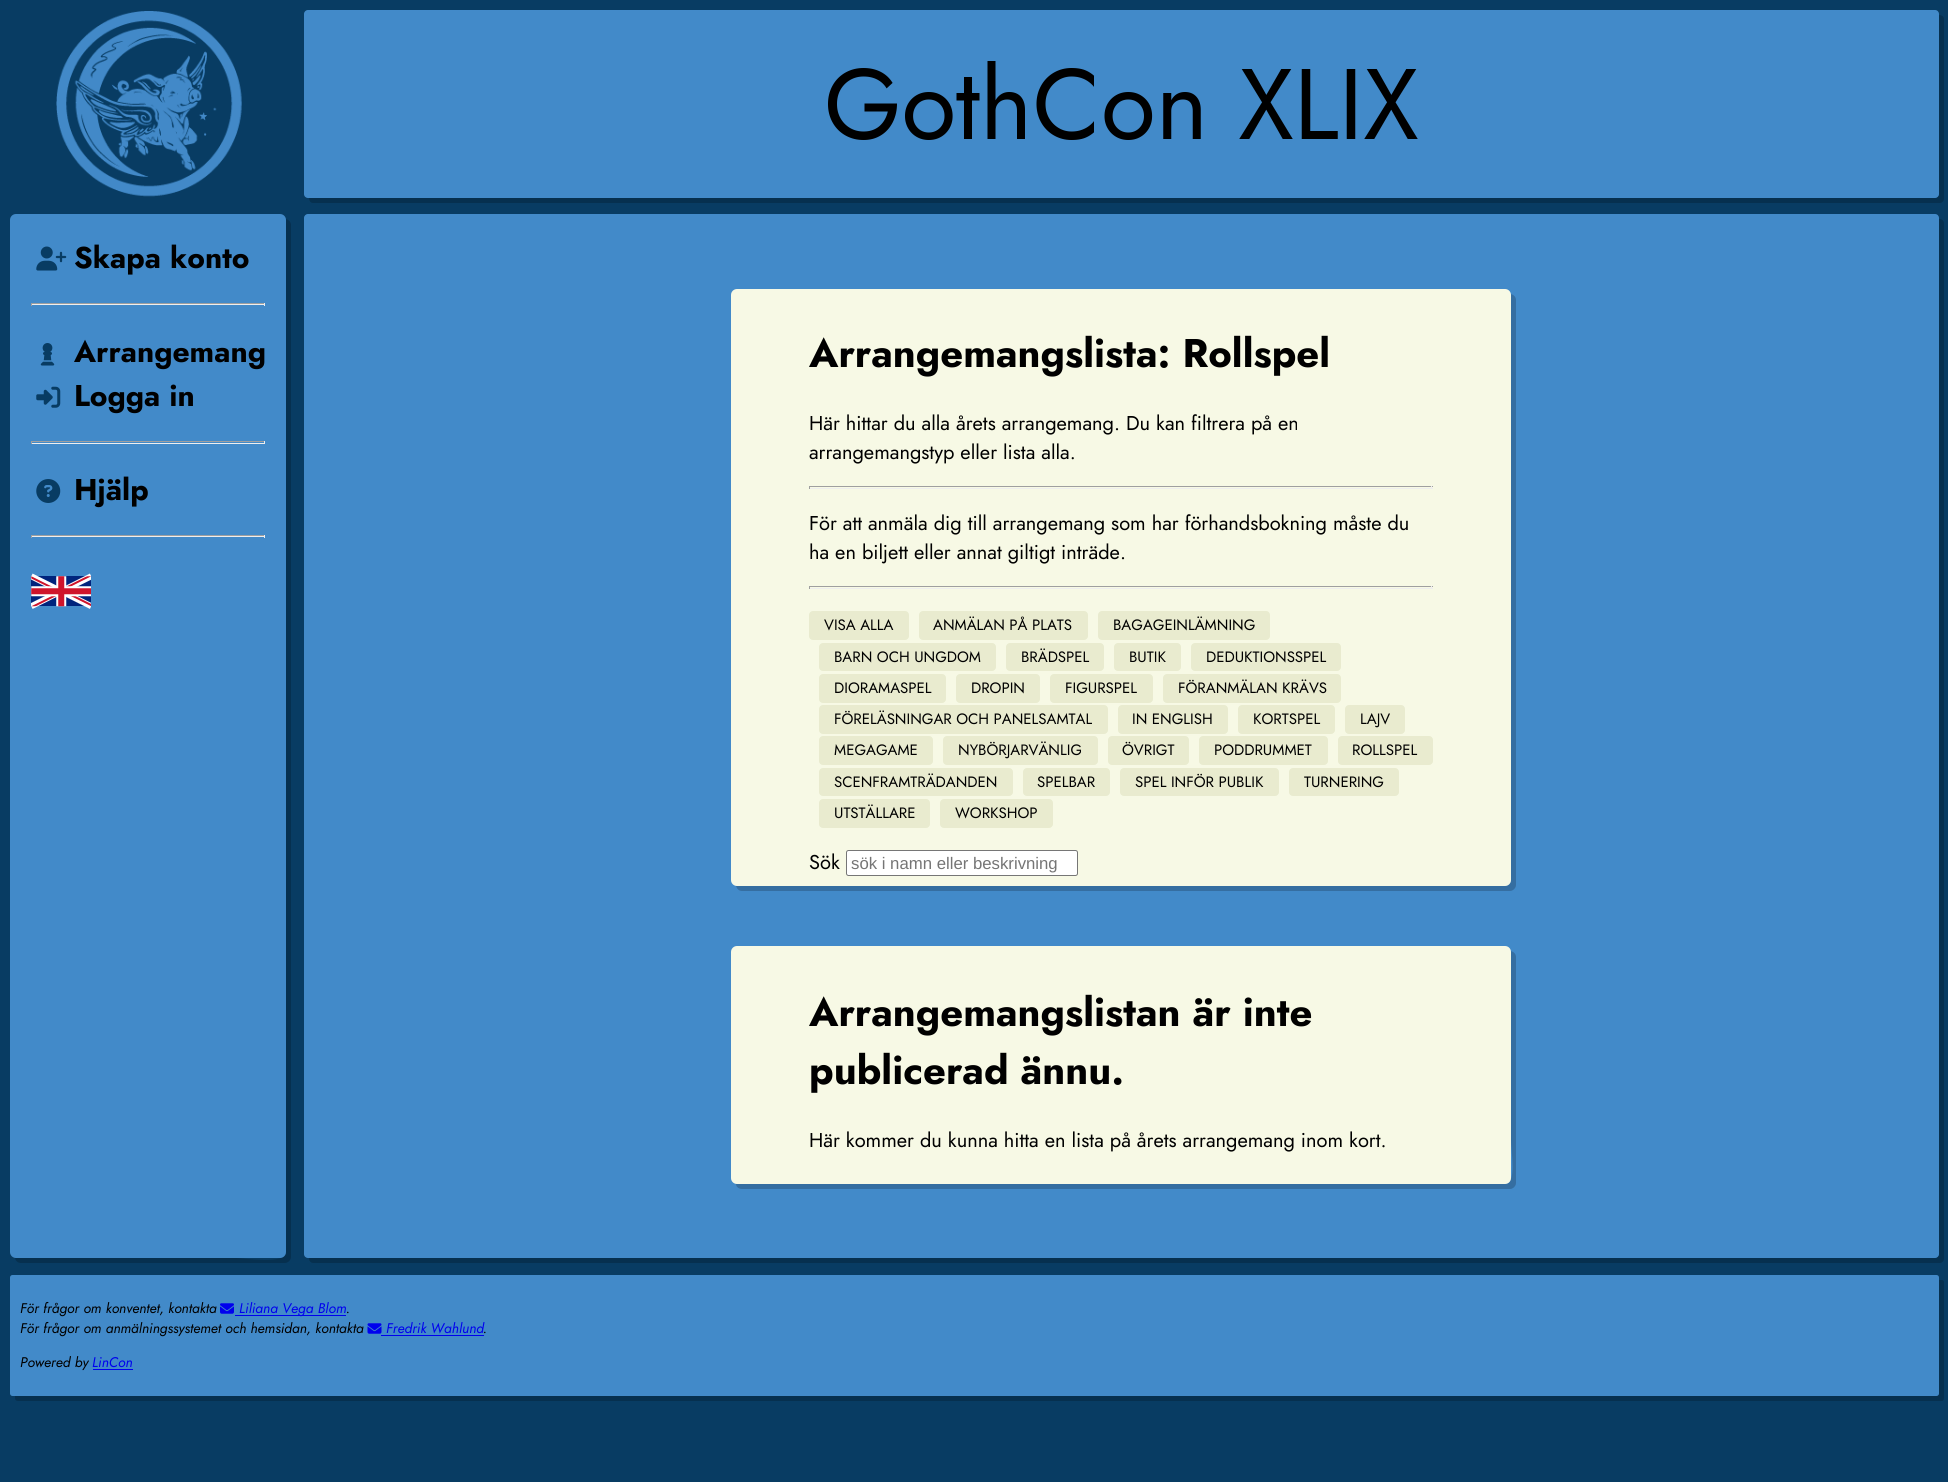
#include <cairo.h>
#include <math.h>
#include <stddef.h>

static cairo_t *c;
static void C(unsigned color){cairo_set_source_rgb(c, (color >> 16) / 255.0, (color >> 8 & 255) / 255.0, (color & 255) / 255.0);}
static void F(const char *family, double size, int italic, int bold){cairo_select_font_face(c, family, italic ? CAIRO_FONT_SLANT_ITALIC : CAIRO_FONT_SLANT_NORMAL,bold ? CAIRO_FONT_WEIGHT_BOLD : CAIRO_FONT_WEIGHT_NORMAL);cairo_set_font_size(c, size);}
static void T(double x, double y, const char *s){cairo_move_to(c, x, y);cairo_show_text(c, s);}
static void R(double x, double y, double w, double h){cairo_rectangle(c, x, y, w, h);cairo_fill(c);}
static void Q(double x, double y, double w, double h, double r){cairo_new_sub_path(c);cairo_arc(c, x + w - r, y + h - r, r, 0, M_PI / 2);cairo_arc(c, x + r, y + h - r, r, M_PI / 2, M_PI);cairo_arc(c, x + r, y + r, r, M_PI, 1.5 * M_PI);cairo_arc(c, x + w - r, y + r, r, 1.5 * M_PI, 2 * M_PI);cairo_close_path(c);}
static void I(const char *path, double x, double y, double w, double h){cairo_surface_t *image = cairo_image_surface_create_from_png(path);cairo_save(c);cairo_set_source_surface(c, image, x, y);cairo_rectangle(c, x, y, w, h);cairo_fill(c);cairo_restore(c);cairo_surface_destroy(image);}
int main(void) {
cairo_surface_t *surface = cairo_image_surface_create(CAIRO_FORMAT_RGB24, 1948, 1482);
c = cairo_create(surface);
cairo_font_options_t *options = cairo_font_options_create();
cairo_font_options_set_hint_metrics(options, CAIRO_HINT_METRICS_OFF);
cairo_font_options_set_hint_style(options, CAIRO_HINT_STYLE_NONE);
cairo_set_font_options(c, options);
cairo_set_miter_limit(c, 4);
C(0x083c63);
cairo_paint(c);
I("1.png",56,11,186,186);
C(0x06304f);
cairo_new_path(c);
cairo_move_to(c,309,198);
cairo_curve_to(c,309,200,310,203,313,203);
cairo_line_to(c,1940,203);
cairo_curve_to(c,1942,203,1944,201,1944,199);
cairo_line_to(c,1944,19);
cairo_curve_to(c,1944,16,1941,15,1939,15);
cairo_line_to(c,1939,194);
cairo_curve_to(c,1939,196,1937,198,1935,198);
cairo_close_path(c);
cairo_fill(c);
C(0x428ac9);
Q(304,10,1635,188,4);
cairo_fill(c);
F("Jost",100,0,0);
C(0x000000);
T(824,139,"GothCon XLIX");
C(0x06304f);
cairo_new_path(c);
cairo_move_to(c,15,1257);
cairo_curve_to(c,15,1261,18,1263,21,1263);
cairo_line_to(c,285,1263);
cairo_curve_to(c,288,1263,291,1260,291,1257);
cairo_line_to(c,291,225);
cairo_curve_to(c,291,222,289,220,286,219);
cairo_line_to(c,286,1252);
cairo_curve_to(c,286,1265,244,1258,236,1258);
cairo_close_path(c);
cairo_fill(c);
C(0x428ac9);
Q(10,214,276,1044,6);
cairo_fill(c);
I("2.png",36,246,31,25);
F("Jost",30,0,1);
C(0x000000);
T(74,268,"Skapa konto");
C(0x9f9f9f);
R(31,303,234,1);
C(0xeeeeee);
R(264,303,1,3);
R(31,304,234,1);
C(0x9f9f9f);
R(31,303,1,3);
I("3.png",40,343,15,23);
C(0x000000);
T(74,362,"Arrangemang");
I("4.png",36,386,25,22);
T(74,406,"Logga in");
C(0x9f9f9f);
R(31,441,234,1);
C(0xeeeeee);
R(264,441,1,3);
R(31,443,234,1);
C(0x9f9f9f);
R(31,441,1,3);
I("5.png",36,479,25,24);
C(0x000000);
T(74,500,"Hjälp");
C(0x9f9f9f);
R(31,535,234,1);
C(0xeeeeee);
R(264,535,1,3);
R(31,536,234,1);
C(0x9f9f9f);
R(31,535,1,3);
I("6.png",31,573,60,36);
C(0x06304f);
cairo_new_path(c);
cairo_move_to(c,309,1258);
cairo_line_to(c,309,1259);
cairo_curve_to(c,309,1261,311,1263,313,1263);
cairo_line_to(c,1940,1263);
cairo_curve_to(c,1942,1263,1944,1261,1944,1259);
cairo_line_to(c,1944,223);
cairo_curve_to(c,1944,221,1942,219,1940,219);
cairo_line_to(c,1939,219);
cairo_line_to(c,1939,1254);
cairo_curve_to(c,1939,1256,1937,1258,1935,1258);
cairo_close_path(c);
cairo_fill(c);
C(0x428ac9);
Q(304,214,1635,1044,4);
cairo_fill(c);
C(0x356ea1);
cairo_new_path(c);
cairo_move_to(c,736,886);
cairo_curve_to(c,737,889,739,891,742,891);
cairo_line_to(c,1510,891);
cairo_curve_to(c,1513,891,1516,888,1516,885);
cairo_line_to(c,1516,300);
cairo_curve_to(c,1516,297,1514,295,1511,294);
cairo_line_to(c,1511,880);
cairo_curve_to(c,1511,883,1508,886,1505,886);
cairo_close_path(c);
cairo_fill(c);
C(0xf7f9e5);
Q(731,289,780,597,6);
cairo_fill(c);
F("Jost",40,0,1);
C(0x000000);
T(809,367,"Arrangemangslista: Rollspel");
F("Jost",20,0,0);
T(809,430,"Här hittar du alla årets arrangemang. Du kan filtrera på en");
T(809,459,"arrangemangstyp eller lista alla.");
C(0x9f9f9f);
R(809,486,624,1);
C(0xeeeeee);
R(1431,486,1,3);
R(809,488,624,1);
C(0x9f9f9f);
R(809,486,1,3);
C(0x000000);
T(809,530,"För att anmäla dig till arrangemang som har förhandsbokning måste du");
T(809,559,"ha en biljett eller annat giltigt inträde.");
C(0x9f9f9f);
R(809,586,624,1);
C(0xeeeeee);
R(1431,586,1,3);
R(809,588,624,1);
C(0x9f9f9f);
R(809,586,1,3);
C(0xe9ebcf);
Q(809,611,100,29,4);
cairo_fill(c);
F("Jost",15,0,0);
C(0x000000);
T(824,630,"VISA ALLA");
C(0xe9ebcf);
Q(919,611,169,29,4);
cairo_fill(c);
C(0x000000);
T(933,630,"ANMÄLAN PÅ PLATS");
C(0xe9ebcf);
Q(1098,611,172,29,4);
cairo_fill(c);
C(0x000000);
T(1113,630,"BAGAGEINLÄMNING");
C(0xe9ebcf);
Q(819,643,177,28,4);
cairo_fill(c);
C(0x000000);
T(834,662,"BARN OCH UNGDOM");
C(0xe9ebcf);
Q(1006,643,98,28,4);
cairo_fill(c);
C(0x000000);
T(1021,662,"BRÄDSPEL");
C(0xe9ebcf);
Q(1114,643,67,28,4);
cairo_fill(c);
C(0x000000);
T(1129,662,"BUTIK");
C(0xe9ebcf);
Q(1191,643,150,28,4);
cairo_fill(c);
C(0x000000);
T(1206,662,"DEDUKTIONSSPEL");
C(0xe9ebcf);
Q(819,674,127,29,4);
cairo_fill(c);
C(0x000000);
T(834,693,"DIORAMASPEL");
C(0xe9ebcf);
Q(956,674,84,29,4);
cairo_fill(c);
C(0x000000);
T(971,693,"DROPIN");
C(0xe9ebcf);
Q(1050,674,103,29,4);
cairo_fill(c);
C(0x000000);
T(1065,693,"FIGURSPEL");
C(0xe9ebcf);
Q(1163,674,178,29,4);
cairo_fill(c);
C(0x000000);
T(1178,693,"FÖRANMÄLAN KRÄVS");
C(0xe9ebcf);
Q(819,705,289,29,4);
cairo_fill(c);
C(0x000000);
T(834,724,"FÖRELÄSNINGAR OCH PANELSAMTAL");
C(0xe9ebcf);
Q(1118,705,110,29,4);
cairo_fill(c);
C(0x000000);
T(1132,724,"IN ENGLISH");
C(0xe9ebcf);
Q(1238,705,97,29,4);
cairo_fill(c);
C(0x000000);
T(1253,724,"KORTSPEL");
C(0xe9ebcf);
Q(1345,705,60,29,4);
cairo_fill(c);
C(0x000000);
T(1360,724,"LAJV");
C(0xe9ebcf);
Q(819,736,114,29,4);
cairo_fill(c);
C(0x000000);
T(834,755,"MEGAGAME");
C(0xe9ebcf);
Q(943,736,155,29,4);
cairo_fill(c);
C(0x000000);
T(958,755,"NYBÖRJARVÄNLIG");
C(0xe9ebcf);
Q(1108,736,81,29,4);
cairo_fill(c);
C(0x000000);
T(1122,755,"ÖVRIGT");
C(0xe9ebcf);
Q(1199,736,129,29,4);
cairo_fill(c);
C(0x000000);
T(1214,755,"PODDRUMMET");
C(0xe9ebcf);
Q(1338,736,95,29,4);
cairo_fill(c);
C(0x000000);
T(1352,755,"ROLLSPEL");
C(0xe9ebcf);
Q(819,768,194,28,4);
cairo_fill(c);
C(0x000000);
T(834,787,"SCENFRAMTRÄDANDEN");
C(0xe9ebcf);
Q(1023,768,87,28,4);
cairo_fill(c);
C(0x000000);
T(1037,787,"SPELBAR");
C(0xe9ebcf);
Q(1120,768,159,28,4);
cairo_fill(c);
C(0x000000);
T(1135,787,"SPEL INFÖR PUBLIK");
C(0xe9ebcf);
Q(1289,768,110,28,4);
cairo_fill(c);
C(0x000000);
T(1304,787,"TURNERING");
C(0xe9ebcf);
Q(819,799,111,29,4);
cairo_fill(c);
C(0x000000);
T(834,818,"UTSTÄLLARE");
C(0xe9ebcf);
Q(940,799,113,29,4);
cairo_fill(c);
C(0x000000);
T(955,818,"WORKSHOP");
F("Jost",20,0,0);
T(809,869,"Sök");
C(0xffffff);
Q(846.5,850.5,231,25,2);
cairo_fill_preserve(c);
C(0x767676);
cairo_set_line_width(c,1);
cairo_stroke(c);
F("Liberation Sans",16.75,0,0);
C(0x757575);
T(851,869,"sök i namn eller beskrivning");
C(0x356ea1);
cairo_new_path(c);
cairo_move_to(c,736,1184);
cairo_curve_to(c,736,1187,739,1189,742,1189);
cairo_line_to(c,1510,1189);
cairo_curve_to(c,1513,1189,1516,1186,1516,1183);
cairo_line_to(c,1516,957);
cairo_curve_to(c,1516,954,1514,952,1511,951);
cairo_line_to(c,1511,1140);
cairo_curve_to(c,1511,1152,1517,1184,1505,1184);
cairo_close_path(c);
cairo_fill(c);
C(0xf7f9e5);
Q(731,946,780,238,6);
cairo_fill(c);
F("Jost",40,0,1);
C(0x000000);
T(809,1026,"Arrangemangslistan är inte");
T(809,1084,"publicerad ännu.");
F("Jost",20,0,0);
T(809,1147,"Här kommer du kunna hitta en lista på årets arrangemang inom kort.");
C(0x06304f);
cairo_new_path(c);
cairo_move_to(c,15,1396);
cairo_line_to(c,15,1398);
cairo_curve_to(c,15,1400,16,1401,18,1401);
cairo_line_to(c,1942,1401);
cairo_curve_to(c,1943,1401,1944,1400,1944,1398);
cairo_line_to(c,1944,1282);
cairo_curve_to(c,1944,1281,1943,1280,1942,1280);
cairo_line_to(c,1939,1280);
cairo_line_to(c,1939,1393);
cairo_curve_to(c,1939,1395,1937,1396,1936,1396);
cairo_close_path(c);
cairo_fill(c);
C(0x428ac9);
Q(10,1275,1929,121,2.5);
cairo_fill(c);
F("Jost",14,1,0);
C(0x000000);
T(20,1313,"För frågor om konventet, kontakta");
I("7.png",220,1303,14,11);
C(0x0000ee);
R(235,1315,111,1);
T(239,1313,"Liliana Vega Blom");
C(0x000000);
T(346,1313,".");
T(20,1333,"För frågor om anmälningssystemet och hemsidan, kontakta");
I("8.png",367,1323,15,11);
C(0x0000ee);
T(386,1333,"Fredrik Wahlund");
R(381,1335,103,1);
C(0x000000);
T(483,1333,".");
T(20,1367,"Powered by");
C(0x0000ee);
T(92,1367,"LinCon");
R(93,1369,40,1);
cairo_surface_write_to_png(surface, "o.png");
cairo_font_options_destroy(options);
cairo_destroy(c);
cairo_surface_destroy(surface);
return 0;
}
